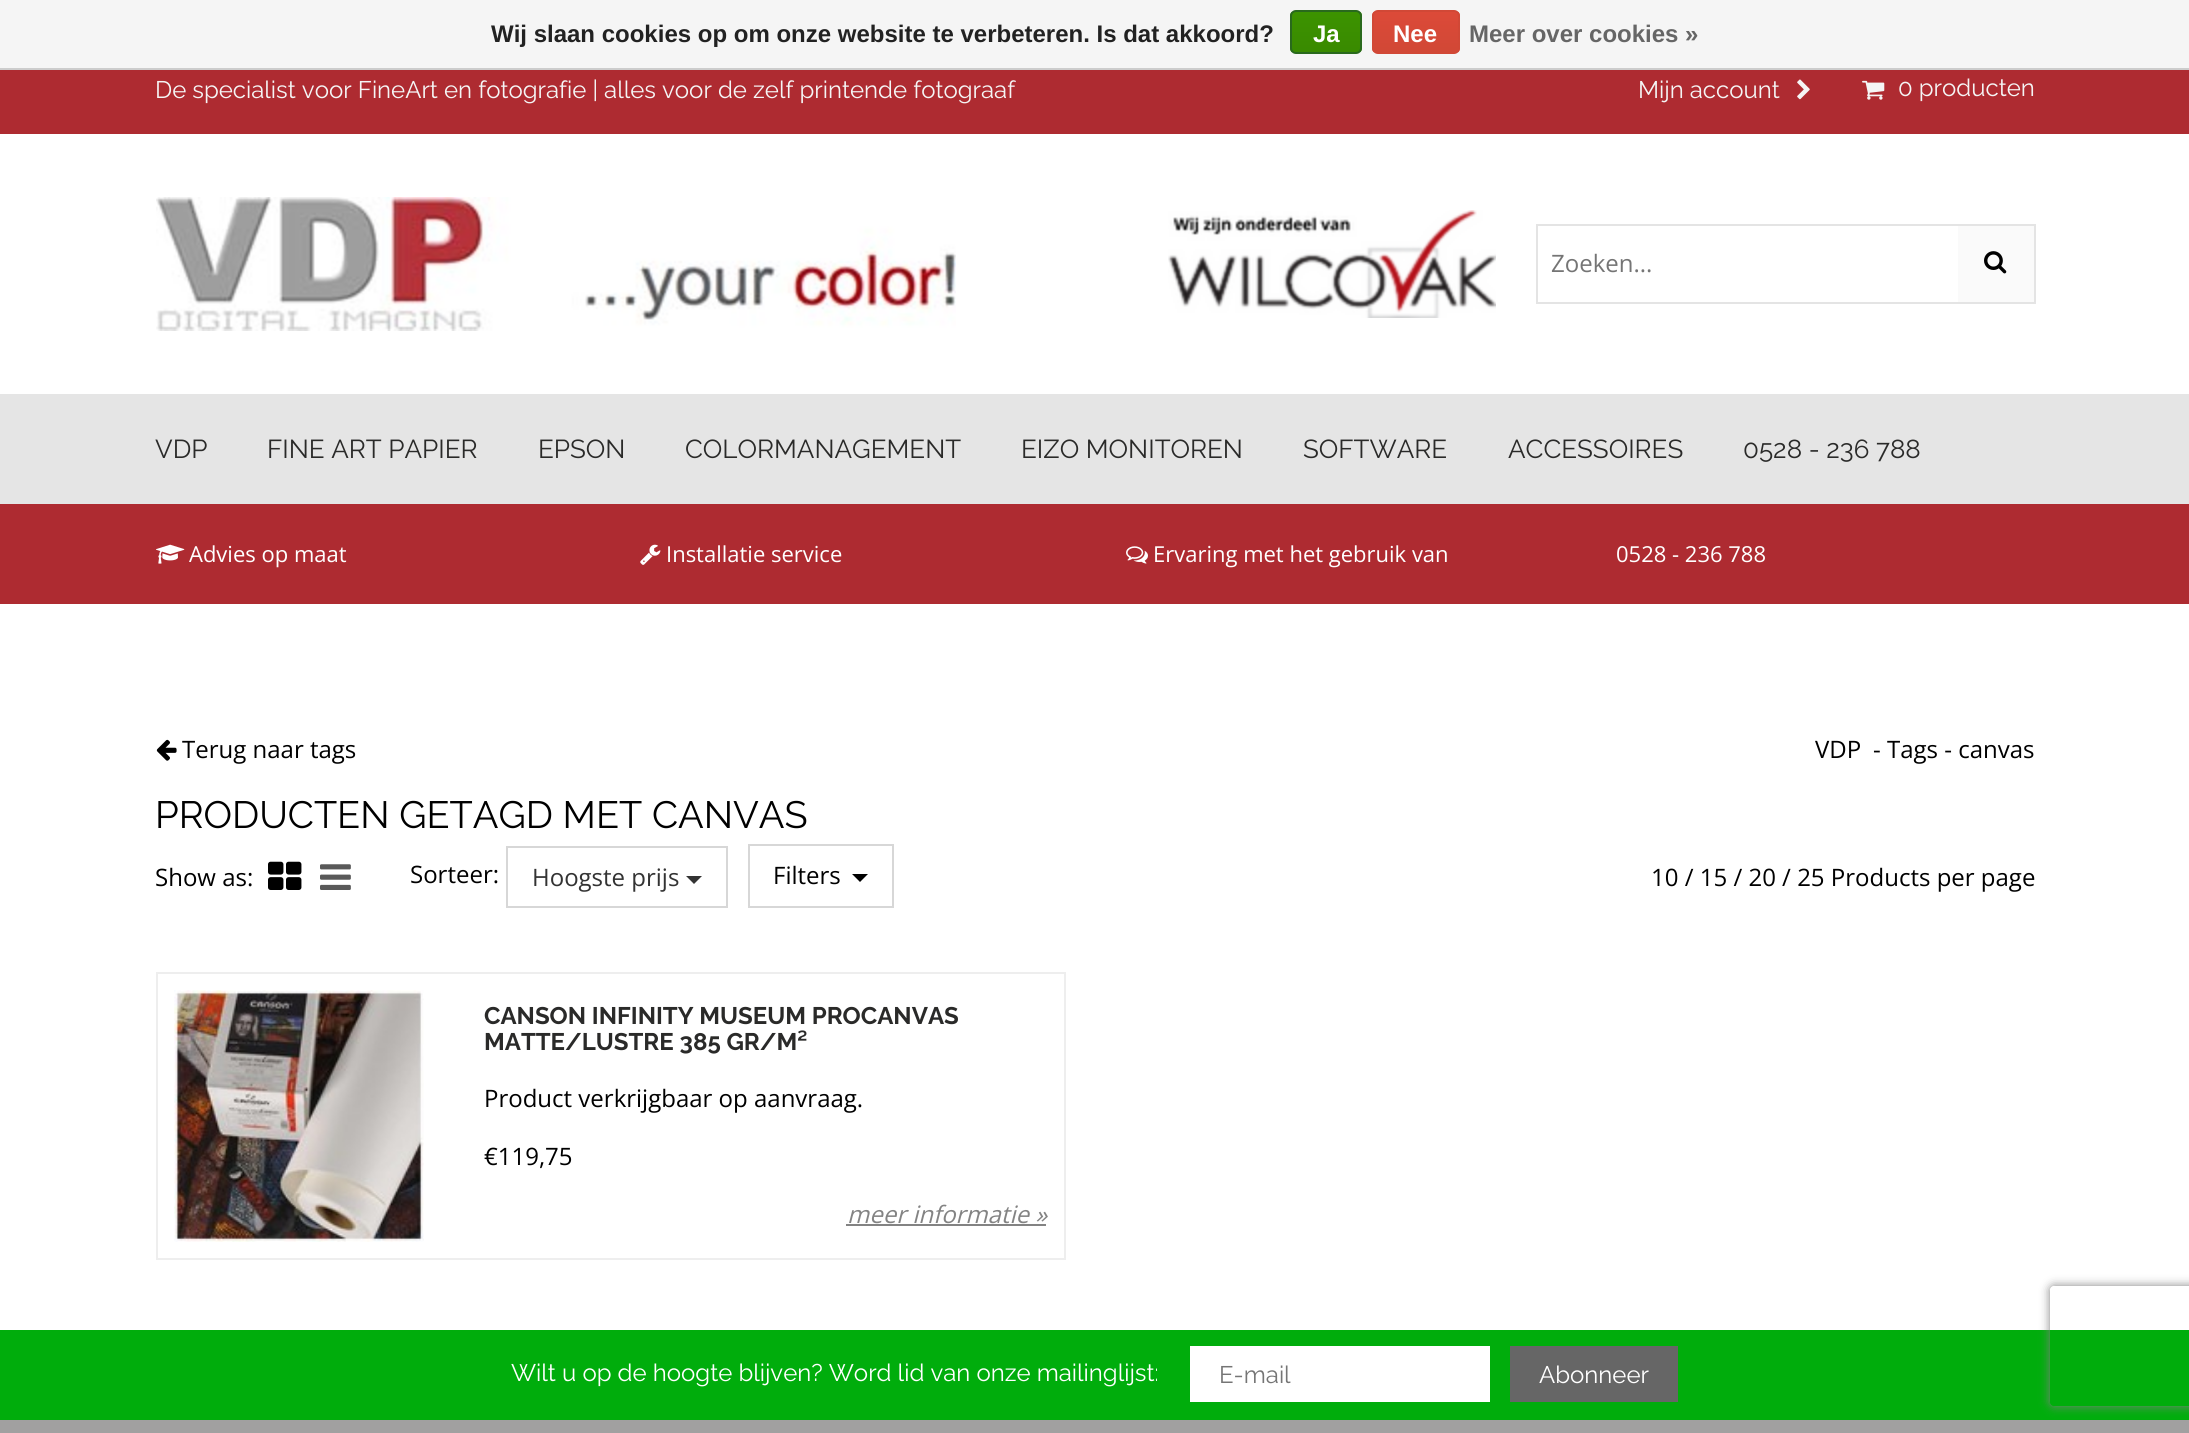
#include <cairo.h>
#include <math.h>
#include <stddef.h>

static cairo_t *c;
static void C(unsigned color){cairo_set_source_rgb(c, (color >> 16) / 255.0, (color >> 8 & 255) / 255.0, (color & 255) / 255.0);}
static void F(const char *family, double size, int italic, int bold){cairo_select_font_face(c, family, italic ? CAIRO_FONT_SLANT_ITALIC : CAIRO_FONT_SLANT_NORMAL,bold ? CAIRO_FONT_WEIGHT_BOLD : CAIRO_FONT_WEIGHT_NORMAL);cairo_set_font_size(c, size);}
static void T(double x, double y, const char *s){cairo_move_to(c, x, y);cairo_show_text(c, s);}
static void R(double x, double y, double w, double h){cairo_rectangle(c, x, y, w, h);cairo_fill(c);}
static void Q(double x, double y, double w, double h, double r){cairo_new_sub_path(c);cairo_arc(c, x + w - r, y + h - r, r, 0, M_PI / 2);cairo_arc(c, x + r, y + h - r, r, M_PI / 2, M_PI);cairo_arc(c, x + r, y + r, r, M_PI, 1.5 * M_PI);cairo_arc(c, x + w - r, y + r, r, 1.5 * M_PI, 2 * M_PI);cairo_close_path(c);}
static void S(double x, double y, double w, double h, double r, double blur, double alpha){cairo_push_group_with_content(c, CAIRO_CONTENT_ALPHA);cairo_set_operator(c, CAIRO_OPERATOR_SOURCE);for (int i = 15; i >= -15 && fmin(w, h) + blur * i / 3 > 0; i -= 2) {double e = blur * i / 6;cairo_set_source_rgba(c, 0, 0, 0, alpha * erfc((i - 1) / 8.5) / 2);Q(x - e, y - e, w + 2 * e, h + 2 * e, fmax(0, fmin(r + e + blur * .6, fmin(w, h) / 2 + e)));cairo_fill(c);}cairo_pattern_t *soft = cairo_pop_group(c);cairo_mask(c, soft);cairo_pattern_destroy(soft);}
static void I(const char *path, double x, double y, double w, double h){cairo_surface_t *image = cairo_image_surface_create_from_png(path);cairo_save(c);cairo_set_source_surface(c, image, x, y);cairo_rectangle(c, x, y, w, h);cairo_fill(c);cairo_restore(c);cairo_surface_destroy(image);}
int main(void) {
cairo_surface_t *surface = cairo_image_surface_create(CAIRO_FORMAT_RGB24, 2189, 1433);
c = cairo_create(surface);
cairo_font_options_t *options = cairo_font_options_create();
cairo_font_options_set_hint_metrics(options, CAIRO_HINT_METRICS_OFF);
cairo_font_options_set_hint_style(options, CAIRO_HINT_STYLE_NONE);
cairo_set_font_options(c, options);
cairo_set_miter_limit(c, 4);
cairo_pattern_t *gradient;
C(0xffffff);
cairo_paint(c);
C(0xf5f5f5);
R(0,0,2189,68);
C(0xcccccc);
R(0,68,2189,2);
F("Liberation Sans",24,0,1);
C(0x222222);
T(491,42,"Wij slaan cookies op om onze website te verbeteren. Is dat akkoord?");
cairo_save(c);
Q(1290,10,72,44,6);
cairo_clip(c);
gradient = cairo_pattern_create_linear(1326,12,1326,52);
cairo_pattern_add_color_stop_rgba(gradient,0,0.235,0.576,0,1);
cairo_pattern_add_color_stop_rgba(gradient,1,0.224,0.541,0,1);
cairo_set_source(c,gradient);
cairo_pattern_destroy(gradient);
R(1290,12,72,40);
cairo_restore(c);
Q(1291,11,70,42,5);
C(0x29691d);
cairo_stroke(c);
C(0xffffff);
T(1313,42,"Ja");
cairo_save(c);
Q(1372,10,88,44,6);
cairo_clip(c);
gradient = cairo_pattern_create_linear(1416,12,1416,52);
cairo_pattern_add_color_stop_rgba(gradient,0,0.863,0.29,0.22,1);
cairo_pattern_add_color_stop_rgba(gradient,1,0.82,0.282,0.212,1);
cairo_set_source(c,gradient);
cairo_pattern_destroy(gradient);
R(1372,12,88,40);
cairo_restore(c);
Q(1373,11,86,42,5);
C(0xd14836);
cairo_stroke(c);
C(0xffffff);
T(1393,42,"Nee");
C(0x666666);
T(1469,42,"Meer over cookies »");
C(0xae2b31);
R(0,70,2189,64);
F("Raleway",24,0,0);
C(0xf5f5f5);
T(155,98,"De specialist voor FineArt en fotografie | alles voor de zelf printende fotograaf");
T(1638,98,"Mijn account");
I("1.png",1797,79,13,21);
I("2.png",1862,80,23,20);
T(1898,96,"0 producten");
I("3.png",156,197,800,134);
I("4.png",1168,210,328,108);
cairo_rectangle(c,1537,225,498,78);
C(0xe4e4e4);
cairo_stroke(c);
F("Open Sans",24,0,0);
C(0x757575);
T(1551,272,"Zoeken...");
C(0xfafafa);
R(1958,226,76,76);
I("5.png",1984,251,23,23);
C(0xe5e5e5);
R(0,394,2189,110);
F("Raleway",26,0,0);
C(0x2a2a29);
T(155,458,"VDP");
T(267,458,"FINE ART PAPIER");
T(538,458,"EPSON");
T(685,458,"COLORMANAGEMENT");
T(1021,458,"EIZO MONITOREN");
T(1303,458,"SOFTWARE");
T(1508,458,"ACCESSOIRES");
T(1743,458,"0528 - 236 788");
C(0xae2b31);
R(0,504,2189,100);
I("6.png",156,544,29,20);
F("Open Sans",22,0,0);
C(0xffffff);
T(189,562,"Advies op maat");
I("7.png",640,544,21,21);
T(666,562,"Installatie service");
I("8.png",1126,546,22,18);
T(1153,562,"Ervaring met het gebruik van");
T(1616,562,"0528 - 236 788");
I("9.png",156,739,21,22);
F("Open Sans",24,0,0);
C(0x000000);
T(182,758,"Terug naar tags");
T(1815,758,"VDP");
T(1873,758,"- Tags - canvas");
F("Raleway",38,0,0);
T(155,828,"PRODUCTEN GETAGD MET CANVAS");
F("Open Sans",24,0,0);
T(155,886,"Show as:");
I("10.png",268,861,34,29);
I("11.png",320,864,31,26);
T(410,883,"Sorteer:");
cairo_rectangle(c,507,847,220,60);
C(0xd7d7d7);
cairo_stroke(c);
C(0x333333);
T(532,886,"Hoogste prijs");
cairo_new_path(c);
cairo_move_to(c,686,876);
cairo_line_to(c,702,876);
cairo_line_to(c,694,884);
cairo_close_path(c);
cairo_fill(c);
cairo_rectangle(c,749,845,144,62);
C(0xd7d7d7);
cairo_stroke(c);
C(0x000000);
T(773,884,"Filters");
cairo_new_path(c);
cairo_move_to(c,852,874);
cairo_line_to(c,868,874);
cairo_line_to(c,860,882);
cairo_close_path(c);
cairo_fill(c);
T(1651,886,"10 / 15 / 20 / 25 Products per page");
cairo_rectangle(c,157,973,908,286);
C(0xeeeeee);
cairo_stroke(c);
I("12.png",174,990,250,252);
F("Raleway",24,0,1);
C(0x2a2a29);
T(484,1024,"CANSON INFINITY MUSEUM PROCANVAS");
T(484,1050,"MATTE/LUSTRE 385 GR/M²");
F("Open Sans",24,0,0);
C(0x000000);
T(484,1107,"Product verkrijgbaar op aanvraag.");
T(484,1165,"€119,75");
F("Open Sans",24,1,0);
C(0x838383);
T(847,1223,"meer informatie »");
R(846,1224,200,2);
C(0x00ad0c);
R(0,1330,2189,90);
F("Raleway",24,0,0);
C(0xffffff);
T(511,1381,"Wilt u op de hoogte blijven? Word lid van onze mailinglijst:");
R(1190,1346,300,56);
C(0x757575);
T(1219,1383,"E-mail");
C(0x666666);
R(1510,1346,168,56);
C(0xffffff);
T(1539,1383,"Abonneer");
C(0xa1a0a0);
R(0,1420,2189,13);
cairo_save(c);
cairo_set_fill_rule(c,CAIRO_FILL_RULE_EVEN_ODD);
cairo_new_path(c);
cairo_move_to(c,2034,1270);
cairo_line_to(c,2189,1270);
cairo_line_to(c,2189,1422);
cairo_line_to(c,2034,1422);
cairo_close_path(c);
cairo_move_to(c,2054,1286);
cairo_line_to(c,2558,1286);
cairo_curve_to(c,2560,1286,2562,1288,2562,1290);
cairo_line_to(c,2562,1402);
cairo_curve_to(c,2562,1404,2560,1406,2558,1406);
cairo_line_to(c,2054,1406);
cairo_curve_to(c,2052,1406,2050,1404,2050,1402);
cairo_line_to(c,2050,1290);
cairo_curve_to(c,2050,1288,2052,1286,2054,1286);
cairo_close_path(c);
cairo_clip(c);
C(0x808080);
S(2050,1286,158,120,4,5,1);
cairo_restore(c);
cairo_surface_write_to_png(surface, "o.png");
cairo_font_options_destroy(options);
cairo_destroy(c);
cairo_surface_destroy(surface);
return 0;
}
